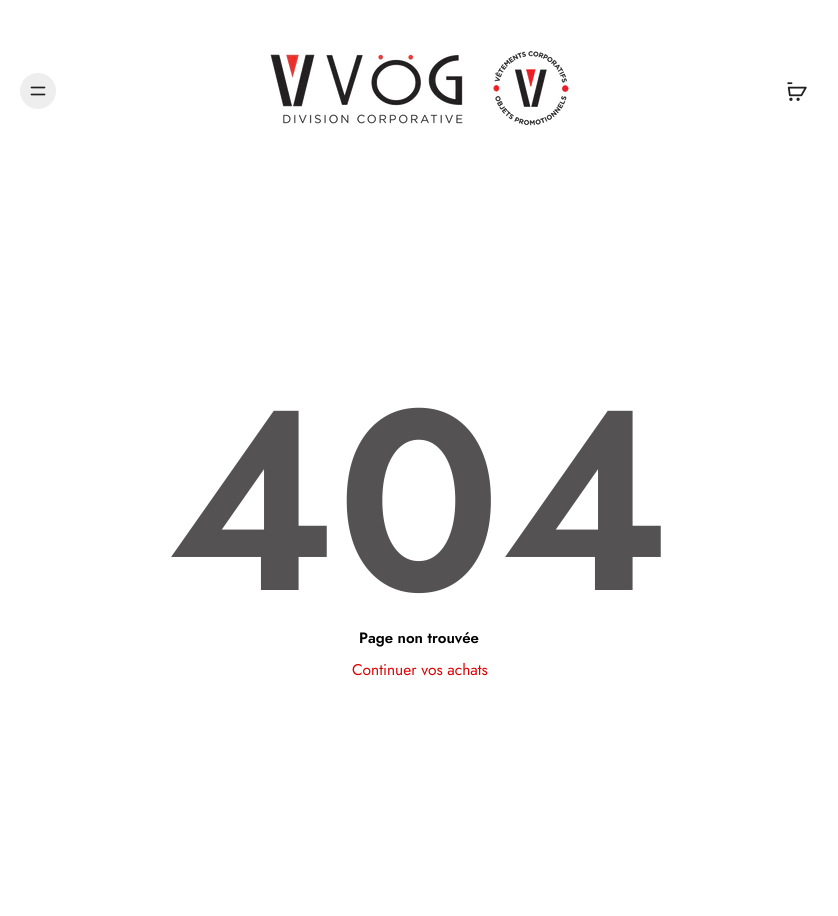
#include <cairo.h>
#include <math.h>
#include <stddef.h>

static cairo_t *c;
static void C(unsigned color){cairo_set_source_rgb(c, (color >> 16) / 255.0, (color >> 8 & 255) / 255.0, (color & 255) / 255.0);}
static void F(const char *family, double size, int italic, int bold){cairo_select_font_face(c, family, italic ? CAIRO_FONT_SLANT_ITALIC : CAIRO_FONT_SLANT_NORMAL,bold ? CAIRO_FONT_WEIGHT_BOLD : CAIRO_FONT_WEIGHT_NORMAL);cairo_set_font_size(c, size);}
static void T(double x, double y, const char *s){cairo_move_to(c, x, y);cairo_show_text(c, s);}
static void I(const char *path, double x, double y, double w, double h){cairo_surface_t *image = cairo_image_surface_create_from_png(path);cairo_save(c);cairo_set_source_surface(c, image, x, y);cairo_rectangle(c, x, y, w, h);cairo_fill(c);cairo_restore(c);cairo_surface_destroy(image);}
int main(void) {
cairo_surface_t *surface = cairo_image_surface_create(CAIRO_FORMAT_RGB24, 838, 916);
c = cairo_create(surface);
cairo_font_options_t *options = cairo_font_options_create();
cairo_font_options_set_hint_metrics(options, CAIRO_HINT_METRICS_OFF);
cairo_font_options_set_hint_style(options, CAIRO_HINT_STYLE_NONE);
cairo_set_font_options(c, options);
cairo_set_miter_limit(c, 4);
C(0xffffff);
cairo_paint(c);
C(0xeeeeee);
cairo_arc(c,38,91,18,0,2 * M_PI);
cairo_fill(c);
cairo_new_path(c);
cairo_move_to(c,31.5,87.5);
cairo_line_to(c,44.5,87.5);
cairo_move_to(c,31.5,94.5);
cairo_line_to(c,44.5,94.5);
C(0x211e1e);
cairo_set_line_width(c,1.7);
cairo_set_line_cap(c,CAIRO_LINE_CAP_ROUND);
cairo_stroke(c);
I("1.png",270,51,299,75);
I("2.png",787,82,20,19);
F("Jost SemiBold",256,0,0);
C(0x545252);
T(167,590,"404");
F("Jost SemiBold",15,0,0);
C(0x000000);
T(359,643,"Page non trouvée");
F("Jost",15.5,0,0);
C(0xdc0000);
T(352,675,"Continuer vos achats");
cairo_surface_write_to_png(surface, "o.png");
cairo_font_options_destroy(options);
cairo_destroy(c);
cairo_surface_destroy(surface);
return 0;
}
